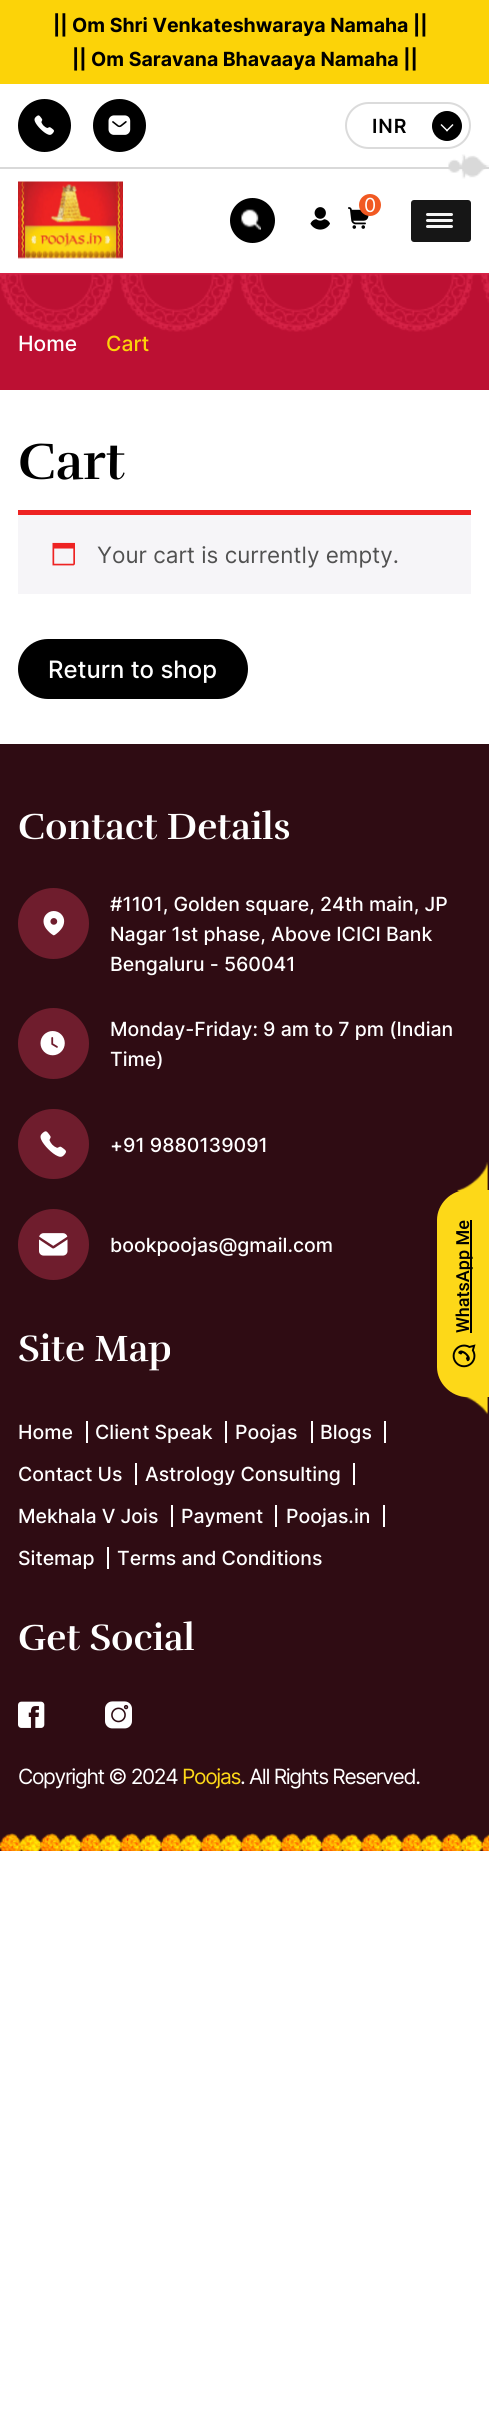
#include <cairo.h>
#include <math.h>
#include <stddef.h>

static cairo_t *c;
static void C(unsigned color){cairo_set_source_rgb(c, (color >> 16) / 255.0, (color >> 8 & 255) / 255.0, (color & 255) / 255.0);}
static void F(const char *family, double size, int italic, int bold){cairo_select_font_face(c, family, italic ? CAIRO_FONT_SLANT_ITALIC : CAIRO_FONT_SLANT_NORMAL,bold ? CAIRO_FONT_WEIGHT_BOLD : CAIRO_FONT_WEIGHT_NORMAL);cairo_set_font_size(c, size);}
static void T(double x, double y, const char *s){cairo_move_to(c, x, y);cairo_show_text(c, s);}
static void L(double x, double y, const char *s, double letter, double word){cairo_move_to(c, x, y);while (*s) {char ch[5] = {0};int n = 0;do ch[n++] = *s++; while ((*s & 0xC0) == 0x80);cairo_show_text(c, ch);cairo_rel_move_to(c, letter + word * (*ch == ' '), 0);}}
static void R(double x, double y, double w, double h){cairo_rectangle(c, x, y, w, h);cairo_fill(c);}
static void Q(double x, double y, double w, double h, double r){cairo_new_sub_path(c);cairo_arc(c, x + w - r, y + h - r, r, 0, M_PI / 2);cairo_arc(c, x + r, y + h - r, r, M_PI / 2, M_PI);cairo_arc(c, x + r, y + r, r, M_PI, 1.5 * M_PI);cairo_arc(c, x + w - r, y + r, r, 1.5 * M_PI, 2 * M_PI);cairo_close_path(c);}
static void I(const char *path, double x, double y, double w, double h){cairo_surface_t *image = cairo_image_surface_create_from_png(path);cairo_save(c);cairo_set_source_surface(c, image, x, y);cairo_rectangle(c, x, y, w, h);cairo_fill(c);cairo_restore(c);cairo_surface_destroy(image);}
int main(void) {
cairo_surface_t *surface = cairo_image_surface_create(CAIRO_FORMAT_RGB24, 489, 2433);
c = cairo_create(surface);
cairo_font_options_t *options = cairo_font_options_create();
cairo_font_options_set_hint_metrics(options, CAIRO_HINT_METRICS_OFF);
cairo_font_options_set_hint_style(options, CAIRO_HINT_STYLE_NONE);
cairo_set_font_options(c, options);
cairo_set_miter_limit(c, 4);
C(0xffffff);
cairo_paint(c);
C(0xfcd308);
R(0,0,489,84);
F("Inter",19.5,0,1);
C(0x000000);
T(53,32,"|| Om Shri Venkateshwaraya Namaha ||");
T(72,66,"|| Om Saravana Bhavaaya Namaha ||");
cairo_new_path(c);
cairo_arc(c,44.5,125.5,26.5,0,2 * M_PI);
cairo_fill(c);
I("1.png",34,115,20,20);
cairo_arc(c,119.5,125.5,26.5,0,2 * M_PI);
cairo_fill(c);
I("2.png",108,115,23,20);
Q(346,103,124,45,22.5);
C(0xdbdbdb);
cairo_stroke(c);
F("Inter SemiBold",19.5,0,0);
C(0x000000);
L(372,133,"INR",1,0);
cairo_new_path(c);
cairo_arc(c,447,126,15,0,2 * M_PI);
cairo_fill(c);
C(0xffffff);
cairo_new_path(c);
cairo_move_to(c,452.5,124);
cairo_line_to(c,453.5,125);
cairo_line_to(c,447,131.5);
cairo_line_to(c,446,130.5);
cairo_close_path(c);
cairo_fill(c);
cairo_new_path(c);
cairo_move_to(c,441.5,124);
cairo_line_to(c,448,130.5);
cairo_line_to(c,447,131.5);
cairo_line_to(c,440.5,125);
cairo_close_path(c);
cairo_fill(c);
C(0xd9d9d9);
R(0,167,489,2);
I("3.png",448,154,41,25);
I("4.png",18,181,105,78);
C(0x000000);
cairo_arc(c,252.5,220.5,22.5,0,2 * M_PI);
cairo_fill(c);
I("5.png",241,209,20,21);
I("6.png",310,207,20,23);
I("7.png",348,207,21,22);
C(0xf15922);
cairo_arc(c,370,205,11,0,2 * M_PI);
cairo_fill(c);
F("Inter",19.5,0,0);
C(0xffffff);
T(364,212,"0");
C(0x161616);
Q(411,200,60,42,3);
cairo_fill(c);
C(0xf5f5f5);
Q(426,213,27,3,1.5);
cairo_fill(c);
Q(426,219,27,3,1.5);
cairo_fill(c);
Q(426,225,27,3,1.5);
cairo_fill(c);
C(0xbc1033);
R(0,274,489,116);
I("8.png",0,273,489,59);
F("Inter Medium",21,0,0);
C(0xffffff);
T(18,351,"Home");
C(0xfcd308);
T(106,351,"Cart");
F("Rufina",52.5,0,1);
C(0x000000);
T(18,479,"Cart");
C(0xf6f5f8);
R(18,515,453,79);
C(0xee2323);
R(18,510,453,5);
I("9.png",52,542,23,24);
F("Inter",22.5,0,0);
C(0x515151);
T(97,563,"Your cart is currently empty.");
C(0x000000);
Q(18,639,230,60,30);
cairo_fill(c);
F("Inter Medium",24,0,0);
C(0xffffff);
T(48,678,"Return to shop");
C(0x2f0c13);
R(0,744,489,1107);
F("Rufina",37.5,0,1);
C(0xffffff);
T(18,839,"Contact Details");
C(0x6f1d2d);
cairo_new_path(c);
cairo_arc(c,53.5,923.5,35.5,0,2 * M_PI);
cairo_fill(c);
I("10.png",43,911,22,25);
F("Inter Medium",19.5,0,0);
C(0xffffff);
T(110,911,"#1101, Golden square, 24th main, JP");
T(110,941,"Nagar 1st phase, Above ICICI Bank");
T(110,971,"Bengaluru - 560041");
C(0x6f1d2d);
cairo_new_path(c);
cairo_arc(c,53.5,1043.5,35.5,0,2 * M_PI);
cairo_fill(c);
I("11.png",40,1031,25,25);
C(0xffffff);
T(110,1036,"Monday-Friday: 9 am to 7 pm (Indian");
T(110,1066,"Time)");
C(0x6f1d2d);
Q(18,1109,71,70,35);
cairo_fill(c);
I("12.png",40,1131,26,26);
C(0xffffff);
T(110,1152,"+91 9880139091");
C(0x6f1d2d);
cairo_new_path(c);
cairo_arc(c,53.5,1244.5,35.5,0,2 * M_PI);
cairo_fill(c);
I("13.png",39,1233,29,23);
C(0xffffff);
T(110,1252,"bookpoojas@gmail.com");
F("Rufina",37.5,0,1);
T(18,1361,"Site Map");
F("Inter Medium",19.5,0,0);
T(18,1439,"Home");
R(86,1421,2,22);
T(95,1439,"Client Speak");
R(225,1421,2,22);
T(235,1439,"Poojas");
R(311,1421,2,22);
T(320,1439,"Blogs");
R(384,1421,2,22);
T(18,1481,"Contact Us");
R(135,1463,2,22);
T(145,1481,"Astrology Consulting");
R(353,1463,2,22);
T(18,1523,"Mekhala V Jois");
R(171,1505,2,22);
T(181,1523,"Payment");
R(275,1505,2,22);
T(286,1523,"Poojas.in");
R(383,1505,2,22);
T(18,1565,"Sitemap");
R(107,1547,2,22);
T(117,1565,"Terms and Conditions");
F("Rufina",37.5,0,1);
T(18,1650,"Get Social");
I("14.png",18,1701,27,27);
I("15.png",105,1701,27,28);
F("Inter",21,0,0);
L(18,1784,"Copyright © 2024",-1.35,0);
C(0xfdd818);
L(182,1784,"Poojas",-1.35,0);
C(0xffffff);
L(240,1784,". All Rights Reserved.",-1.35,0);
I("16.png",0,1833,489,18);
C(0xfdd818);
cairo_new_path(c);
cairo_move_to(c,437,1367);
cairo_line_to(c,437,1220);
cairo_curve_to(c,437,1204,451,1190,467,1190);
cairo_line_to(c,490,1190);
cairo_line_to(c,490,1397);
cairo_line_to(c,467,1397);
cairo_curve_to(c,451,1397,437,1383,437,1367);
cairo_close_path(c);
cairo_fill(c);
I("17.png",457,1162,31,30);
C(0x000000);
R(470,1220,2,113);
F("Roboto Medium",18,0,0);
cairo_save(c);
cairo_translate(c,469,1333);
cairo_rotate(c,-90 * M_PI / 180);
T(0,0,"WhatsApp Me");
cairo_restore(c);
I("18.png",452,1344,24,24);
I("19.png",459,1396,29,19);
cairo_surface_write_to_png(surface, "o.png");
cairo_font_options_destroy(options);
cairo_destroy(c);
cairo_surface_destroy(surface);
return 0;
}
